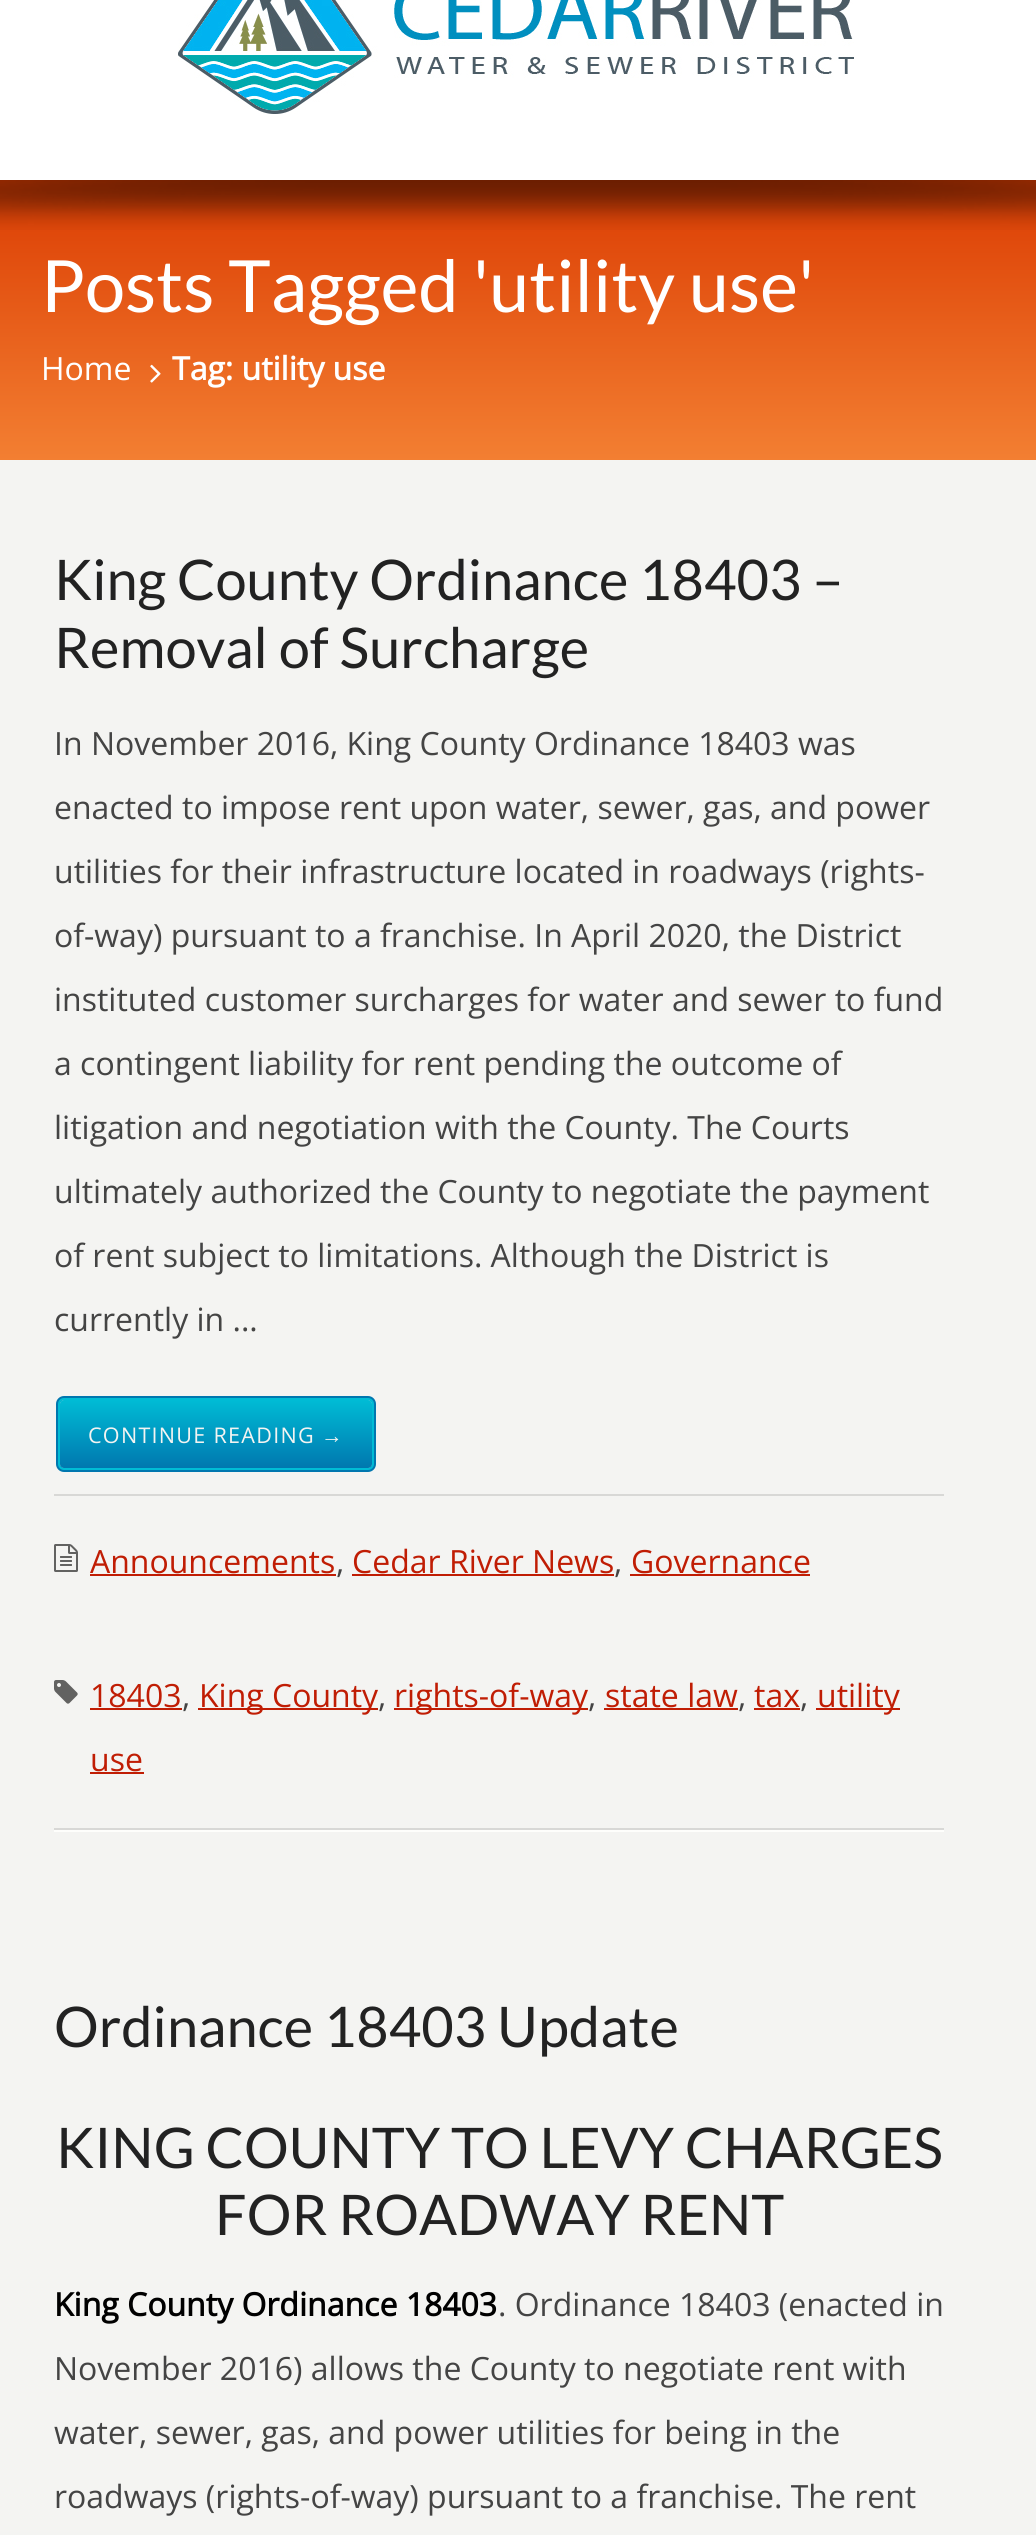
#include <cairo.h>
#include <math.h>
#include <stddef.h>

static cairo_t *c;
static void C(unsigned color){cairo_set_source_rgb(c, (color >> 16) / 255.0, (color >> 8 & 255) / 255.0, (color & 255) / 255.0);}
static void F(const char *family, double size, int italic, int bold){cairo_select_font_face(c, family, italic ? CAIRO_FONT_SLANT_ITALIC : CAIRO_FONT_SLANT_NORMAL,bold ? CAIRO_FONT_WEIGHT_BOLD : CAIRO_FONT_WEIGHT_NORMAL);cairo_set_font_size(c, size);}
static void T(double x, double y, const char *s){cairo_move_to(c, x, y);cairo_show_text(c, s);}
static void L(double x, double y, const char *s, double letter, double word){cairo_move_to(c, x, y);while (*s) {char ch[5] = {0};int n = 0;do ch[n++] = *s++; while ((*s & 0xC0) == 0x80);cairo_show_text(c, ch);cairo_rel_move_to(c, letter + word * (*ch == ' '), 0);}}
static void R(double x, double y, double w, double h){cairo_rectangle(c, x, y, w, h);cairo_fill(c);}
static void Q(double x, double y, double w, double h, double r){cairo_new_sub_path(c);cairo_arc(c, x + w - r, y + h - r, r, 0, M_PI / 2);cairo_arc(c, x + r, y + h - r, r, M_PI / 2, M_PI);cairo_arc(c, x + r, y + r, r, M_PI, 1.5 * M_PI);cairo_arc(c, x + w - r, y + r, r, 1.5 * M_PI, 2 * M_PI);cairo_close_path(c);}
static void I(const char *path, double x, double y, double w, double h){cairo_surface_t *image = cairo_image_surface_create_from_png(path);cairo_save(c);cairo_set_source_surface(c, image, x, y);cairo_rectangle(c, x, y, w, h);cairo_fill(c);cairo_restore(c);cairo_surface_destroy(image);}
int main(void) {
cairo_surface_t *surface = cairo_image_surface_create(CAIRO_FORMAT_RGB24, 1036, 2535);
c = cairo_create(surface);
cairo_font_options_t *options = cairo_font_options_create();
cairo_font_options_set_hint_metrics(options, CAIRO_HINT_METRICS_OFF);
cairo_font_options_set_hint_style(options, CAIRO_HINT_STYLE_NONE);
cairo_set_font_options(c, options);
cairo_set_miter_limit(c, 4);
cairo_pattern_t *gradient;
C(0xf4f4f2);
cairo_paint(c);
C(0xffffff);
R(0,0,1036,180);
I("1.png",178,0,676,114);
gradient = cairo_pattern_create_linear(518,180,518,460);
cairo_pattern_add_color_stop_rgba(gradient,0,0.859,0.235,0.008,1);
cairo_pattern_add_color_stop_rgba(gradient,1,0.953,0.498,0.196,1);
cairo_set_source(c,gradient);
cairo_pattern_destroy(gradient);
R(0,180,1036,280);
I("2.png",0,180,1036,50);
F("Lato",72,0,0);
C(0xffffff);
T(41,312,"Posts Tagged 'utility use'");
F("Open Sans",32,0,0);
T(41,380,"Home");
I("3.png",150,364,11,19);
F("Open Sans",32,0,1);
T(172,380,"Tag: utility use");
F("Lato",56,0,0);
C(0x222222);
T(54,600,"King County Ordinance 18403 –");
T(54,668,"Removal of Surcharge");
F("Open Sans",32,0,0);
C(0x444444);
T(54,755,"In November 2016, King County Ordinance 18403 was");
T(54,819,"enacted to impose rent upon water, sewer, gas, and power");
T(54,883,"utilities for their infrastructure located in roadways (rights-");
T(54,947,"of-way) pursuant to a franchise. In April 2020, the District");
T(54,1011,"instituted customer surcharges for water and sewer to fund");
T(54,1075,"a contingent liability for rent pending the outcome of");
T(54,1139,"litigation and negotiation with the County. The Courts");
T(54,1203,"ultimately authorized the County to negotiate the payment");
T(54,1267,"of rent subject to limitations. Although the District is");
T(54,1331,"currently in ...");
Q(58,1398,316,72,6);
C(0x0077af);
cairo_set_line_width(c,4);
cairo_stroke(c);
Q(59,1399,314,70,5);
C(0x00bcd5);
cairo_set_line_width(c,2);
cairo_stroke(c);
gradient = cairo_pattern_create_linear(216,1400,216,1468);
cairo_pattern_add_color_stop_rgba(gradient,0,0,0.737,0.835,1);
cairo_pattern_add_color_stop_rgba(gradient,1,0,0.467,0.686,1);
cairo_set_source(c,gradient);
cairo_pattern_destroy(gradient);
Q(60,1400,312,68,4);
cairo_fill(c);
F("Open Sans",21.6,0,0);
C(0xf4f4f2);
L(88,1443,"CONTINUE READING",1.25,0);
F("Liberation Sans",21.6,0,0);
L(321,1443,"→",1.25,0);
C(0xfefefc);
R(54,1830,890,2);
C(0xd8d8d6);
R(54,1494,890,2);
I("4.png",54,1544,24,28);
F("Open Sans",32,0,0);
C(0xc01d04);
T(90,1573,"Announcements");
R(90,1574,246,2);
C(0x444444);
T(336,1573,",");
C(0xc01d04);
T(352,1573,"Cedar River News");
R(352,1574,262,2);
C(0x444444);
T(614,1573,",");
C(0xc01d04);
T(631,1573,"Governance");
R(630,1574,180,2);
I("5.png",54,1680,24,24);
T(90,1707,"18403");
R(90,1708,92,2);
C(0x444444);
T(182,1707,",");
C(0xc01d04);
R(198,1708,180,2);
T(199,1707,"King County");
C(0x444444);
T(378,1707,",");
C(0xc01d04);
R(394,1708,194,2);
T(394,1707,"rights-of-way");
C(0x444444);
T(588,1707,",");
C(0xc01d04);
T(605,1707,"state law");
R(604,1708,134,2);
C(0x444444);
T(738,1707,",");
C(0xc01d04);
T(754,1707,"tax");
R(754,1708,46,2);
C(0x444444);
T(800,1707,",");
C(0xc01d04);
R(816,1708,84,2);
T(817,1707,"utility");
T(90,1771,"use");
R(90,1772,54,2);
C(0xd8d8d6);
R(54,1828,890,2);
F("Lato",56,0,0);
C(0x222222);
T(54,2047,"Ordinance 18403 Update");
T(56,2168,"KING COUNTY TO LEVY CHARGES");
T(215,2235,"FOR ROADWAY RENT");
F("Open Sans",32,0,1);
C(0x000000);
T(54,2316,"King County Ordinance 18403");
F("Open Sans",32,0,0);
C(0x444444);
T(498,2316,". Ordinance 18403 (enacted in");
T(54,2380,"November 2016) allows the County to negotiate rent with");
T(54,2444,"water, sewer, gas, and power utilities for being in the");
T(54,2508,"roadways (rights-of-way) pursuant to a franchise. The rent");
cairo_surface_write_to_png(surface, "o.png");
cairo_font_options_destroy(options);
cairo_destroy(c);
cairo_surface_destroy(surface);
return 0;
}
